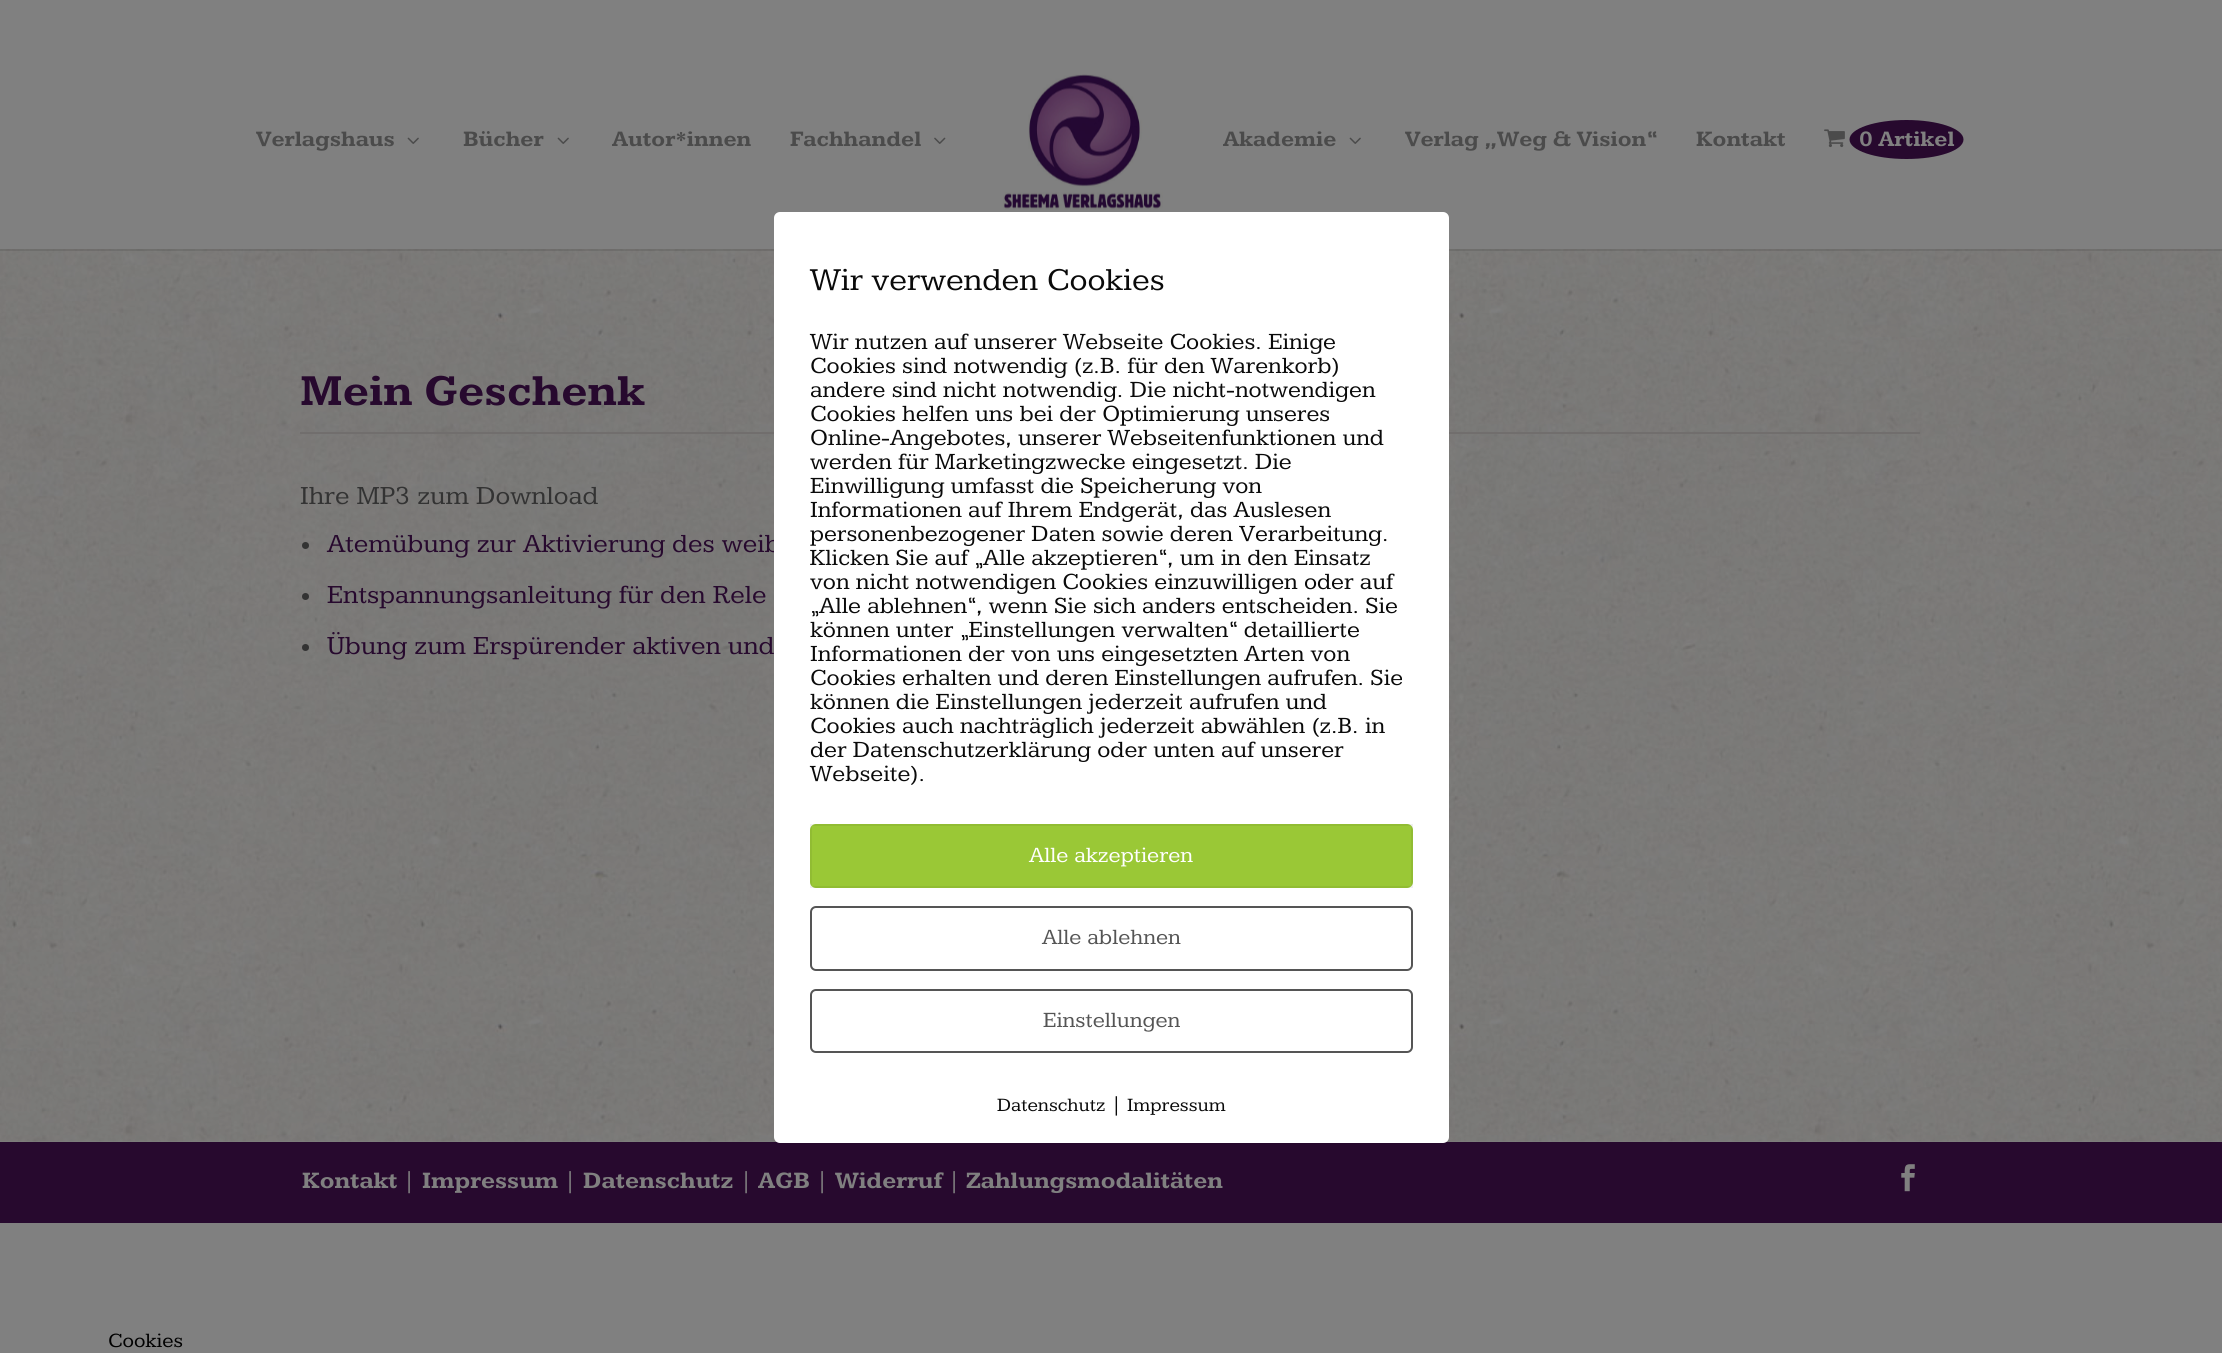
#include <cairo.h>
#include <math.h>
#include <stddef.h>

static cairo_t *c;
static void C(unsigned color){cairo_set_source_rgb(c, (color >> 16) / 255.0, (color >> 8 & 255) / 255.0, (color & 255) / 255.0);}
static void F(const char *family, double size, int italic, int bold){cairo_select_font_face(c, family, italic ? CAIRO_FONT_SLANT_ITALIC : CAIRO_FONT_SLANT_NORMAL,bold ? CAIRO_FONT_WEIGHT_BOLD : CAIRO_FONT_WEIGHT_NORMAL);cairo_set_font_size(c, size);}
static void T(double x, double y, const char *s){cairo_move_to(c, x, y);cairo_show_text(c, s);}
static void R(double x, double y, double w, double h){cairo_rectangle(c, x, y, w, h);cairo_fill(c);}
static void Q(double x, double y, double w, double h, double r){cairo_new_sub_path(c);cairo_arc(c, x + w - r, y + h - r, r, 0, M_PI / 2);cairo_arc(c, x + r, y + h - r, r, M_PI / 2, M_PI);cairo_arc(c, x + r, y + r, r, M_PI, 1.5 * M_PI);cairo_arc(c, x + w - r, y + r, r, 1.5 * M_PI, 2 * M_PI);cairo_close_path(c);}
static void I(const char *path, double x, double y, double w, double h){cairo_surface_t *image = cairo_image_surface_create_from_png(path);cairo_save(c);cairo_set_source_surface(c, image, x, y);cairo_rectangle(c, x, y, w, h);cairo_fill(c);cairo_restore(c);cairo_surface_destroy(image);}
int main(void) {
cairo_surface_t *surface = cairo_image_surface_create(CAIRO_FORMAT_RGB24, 2222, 1353);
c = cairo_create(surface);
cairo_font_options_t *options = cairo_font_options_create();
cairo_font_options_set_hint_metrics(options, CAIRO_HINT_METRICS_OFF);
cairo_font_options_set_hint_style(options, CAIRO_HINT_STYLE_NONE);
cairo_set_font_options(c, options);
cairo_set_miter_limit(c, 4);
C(0x808080);
cairo_paint(c);
I("5.png",0,249,2222,893);
cairo_set_source_rgba(c,0,0,0,0.1);
R(0,249,2222,2);
F("Kameron",22.5,0,1);
C(0x4b4b4b);
T(256,146,"Verlagshaus");
I("1.png",407,137,12,7);
T(463,146,"Bücher");
I("1.png",557,137,12,7);
T(612,146,"Autor*innen");
T(790,146,"Fachhandel");
I("2.png",934,137,12,7);
I("3.png",1003,74,160,136);
T(1223,146,"Akademie");
I("1.png",1349,137,12,7);
T(1405,146,"Verlag „Weg & Vision“");
T(1696,146,"Kontakt");
I("4.png",1824,129,21,19);
C(0x27092e);
cairo_new_path(c);
cairo_move_to(c,1906.5,120);
cairo_curve_to(c,1938,120,1963.5,128.5,1963.5,139.5);
cairo_curve_to(c,1963.5,150.5,1938,159,1906.5,159);
cairo_curve_to(c,1875,159,1849.5,150.5,1849.5,139.5);
cairo_curve_to(c,1849.5,128.5,1875,120,1906.5,120);
cairo_close_path(c);
cairo_fill(c);
C(0x808080);
T(1859,146,"0 Artikel");
F("Kameron",45,0,1);
C(0x27092e);
T(300,405,"Mein Geschenk");
C(0x716e6d);
R(300,432,1620,2);
F("Kameron",27,0,0);
C(0x333333);
T(300,504,"Ihre MP3 zum Download");
cairo_new_path(c);
cairo_arc(c,305.5,545.5,3.5,0,2 * M_PI);
cairo_fill(c);
C(0x27092e);
T(327,552,"Atemübung zur Aktivierung des weib");
C(0x333333);
cairo_new_path(c);
cairo_arc(c,305.5,596.5,3.5,0,2 * M_PI);
cairo_fill(c);
C(0x27092e);
T(327,603,"Entspannungsanleitung für den Rele");
C(0x333333);
cairo_new_path(c);
cairo_arc(c,305.5,647.5,3.5,0,2 * M_PI);
cairo_fill(c);
C(0x27092e);
T(327,654,"Übung zum Erspürender aktiven und");
R(0,1142,2222,81);
F("Kameron",24,0,1);
C(0x808080);
T(302,1188,"Kontakt");
F("Kameron",24,0,0);
T(403,1188,"|");
F("Kameron",24,0,1);
T(422,1188,"Impressum");
F("Kameron",24,0,0);
T(564,1188,"|");
F("Kameron",24,0,1);
T(583,1188,"Datenschutz");
F("Kameron",24,0,0);
T(740,1188,"|");
F("Kameron",24,0,1);
T(758,1188,"AGB");
F("Kameron",24,0,0);
T(816,1188,"|");
F("Kameron",24,0,1);
T(835,1188,"Widerruf");
F("Kameron",24,0,0);
T(948,1188,"|");
F("Kameron",24,0,1);
T(966,1188,"Zahlungsmodalitäten");
I("6.png",1901,1164,14,28);
C(0xffffff);
Q(774,212,675,931,6);
cairo_fill(c);
F("Kameron",33,0,0);
C(0x0a0a0a);
T(810,290,"Wir verwenden Cookies");
F("Kameron",24,0,0);
T(810,349,"Wir nutzen auf unserer Webseite Cookies. Einige");
T(810,373,"Cookies sind notwendig (z.B. für den Warenkorb)");
T(810,397,"andere sind nicht notwendig. Die nicht-notwendigen");
T(810,421,"Cookies helfen uns bei der Optimierung unseres");
T(810,445,"Online-Angebotes, unserer Webseitenfunktionen und");
T(810,469,"werden für Marketingzwecke eingesetzt. Die");
T(810,493,"Einwilligung umfasst die Speicherung von");
T(810,517,"Informationen auf Ihrem Endgerät, das Auslesen");
T(810,541,"personenbezogener Daten sowie deren Verarbeitung.");
T(810,565,"Klicken Sie auf „Alle akzeptieren“, um in den Einsatz");
T(810,589,"von nicht notwendigen Cookies einzuwilligen oder auf");
T(810,613,"„Alle ablehnen“, wenn Sie sich anders entscheiden. Sie");
T(810,637,"können unter „Einstellungen verwalten“ detaillierte");
T(810,661,"Informationen der von uns eingesetzten Arten von");
T(810,685,"Cookies erhalten und deren Einstellungen aufrufen. Sie");
T(810,709,"können die Einstellungen jederzeit aufrufen und");
T(810,733,"Cookies auch nachträglich jederzeit abwählen (z.B. in");
T(810,757,"der Datenschutzerklärung oder unten auf unserer");
T(810,781,"Webseite).");
C(0x9ac836);
Q(810,824,603,64,6);
cairo_fill(c);
cairo_rectangle(c,811,825,601,62);
cairo_set_source_rgba(c,0,0,0,0.06);
cairo_stroke(c);
F("Kameron",22.5,0,0);
C(0xffffff);
T(1029,862,"Alle akzeptieren");
Q(811,907,601,63,5);
C(0x555555);
cairo_stroke(c);
T(1042,944,"Alle ablehnen");
Q(811,990,601,62,5);
cairo_stroke(c);
T(1043,1027,"Einstellungen");
F("Kameron",19.5,0,0);
C(0x0a0a0a);
T(997,1111,"Datenschutz");
F("Kameron",21,0,0);
T(1111,1111,"|");
F("Kameron",19.5,0,0);
T(1127,1111,"Impressum");
F("Kameron",21,0,0);
C(0x000000);
T(108,1347,"Cookies");
cairo_surface_write_to_png(surface, "o.png");
cairo_font_options_destroy(options);
cairo_destroy(c);
cairo_surface_destroy(surface);
return 0;
}
